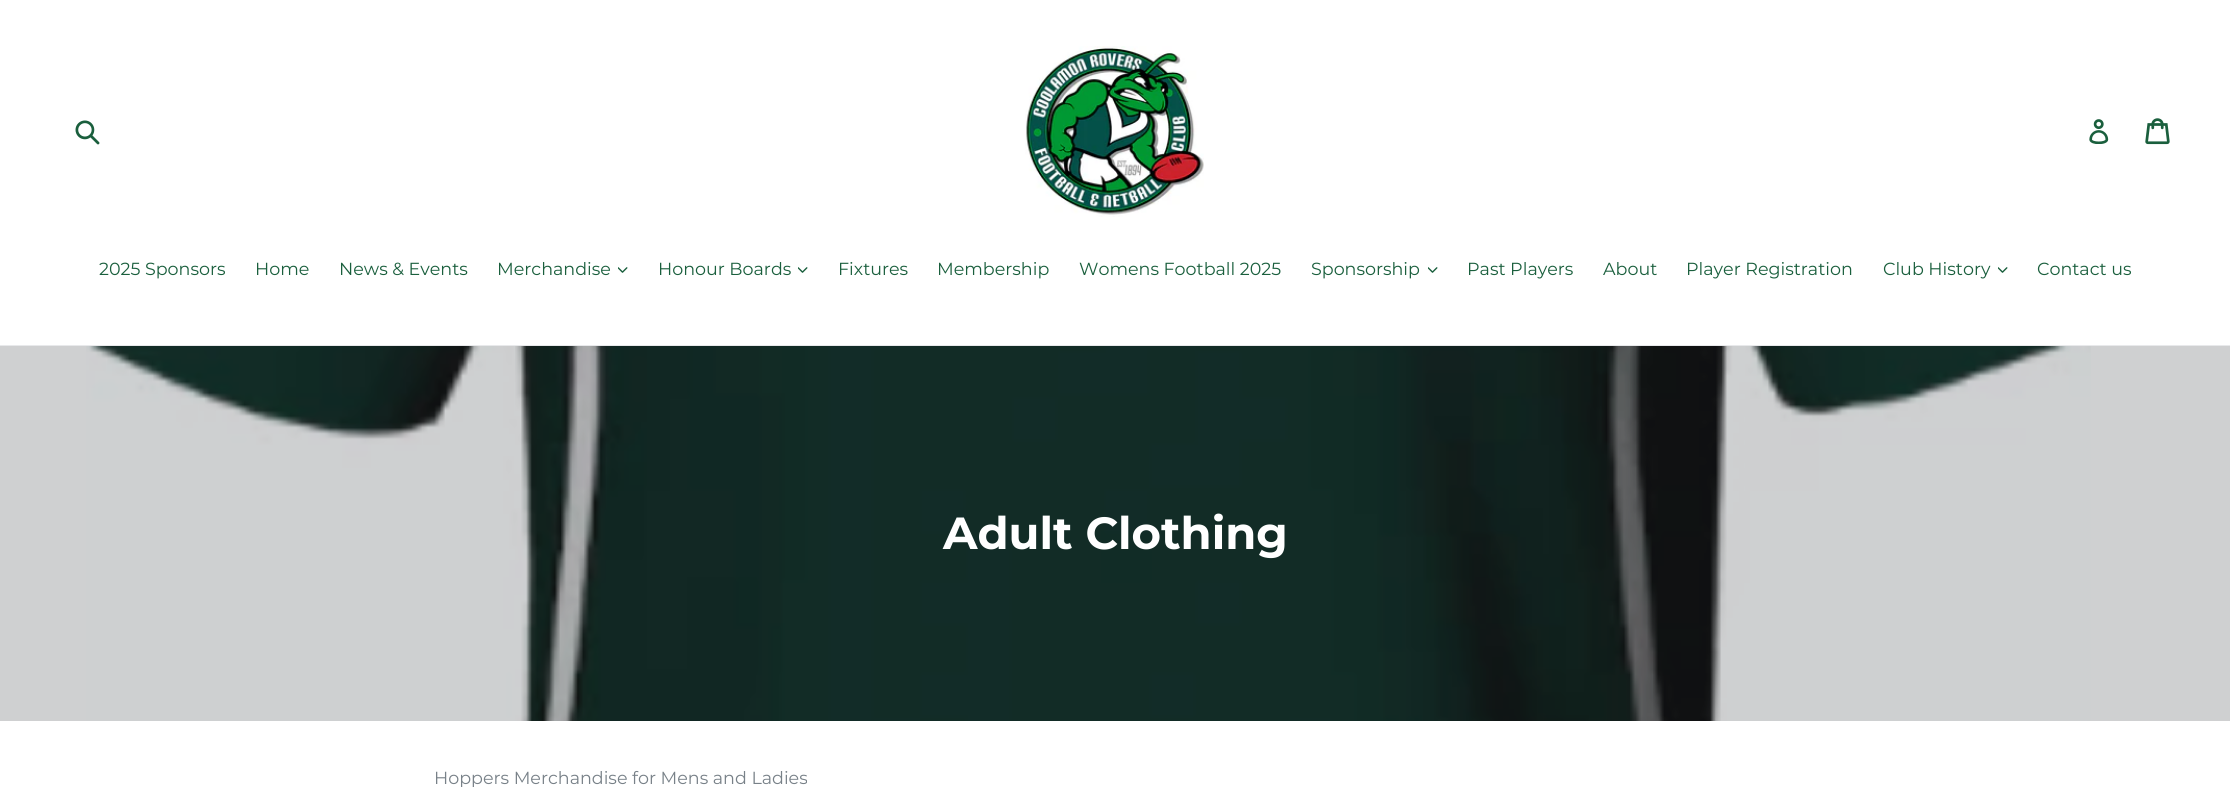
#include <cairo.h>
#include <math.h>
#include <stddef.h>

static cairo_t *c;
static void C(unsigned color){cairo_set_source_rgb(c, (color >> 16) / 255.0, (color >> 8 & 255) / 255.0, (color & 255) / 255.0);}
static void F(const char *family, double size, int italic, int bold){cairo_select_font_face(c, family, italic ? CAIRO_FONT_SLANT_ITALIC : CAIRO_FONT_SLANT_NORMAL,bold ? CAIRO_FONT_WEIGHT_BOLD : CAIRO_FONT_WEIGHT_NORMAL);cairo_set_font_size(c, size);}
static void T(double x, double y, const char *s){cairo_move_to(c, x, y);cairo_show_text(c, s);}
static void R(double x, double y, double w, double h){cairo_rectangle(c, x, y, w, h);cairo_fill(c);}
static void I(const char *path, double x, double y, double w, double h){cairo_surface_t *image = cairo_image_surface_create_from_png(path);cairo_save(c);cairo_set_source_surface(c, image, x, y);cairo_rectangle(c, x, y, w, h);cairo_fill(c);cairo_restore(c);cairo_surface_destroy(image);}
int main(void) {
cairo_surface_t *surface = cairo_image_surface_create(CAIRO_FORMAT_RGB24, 2230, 787);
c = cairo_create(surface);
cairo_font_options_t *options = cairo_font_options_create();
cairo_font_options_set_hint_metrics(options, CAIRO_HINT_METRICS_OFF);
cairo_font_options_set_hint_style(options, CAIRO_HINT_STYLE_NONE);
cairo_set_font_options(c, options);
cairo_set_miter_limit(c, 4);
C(0xffffff);
cairo_paint(c);
C(0xcfd0d1);
R(0,346,2230,375);
I("1.png",75,120,25,25);
I("2.png",1025,46,179,171);
I("3.png",2089,119,20,25);
I("4.png",2145,118,25,27);
C(0xe8e9eb);
R(0,345,2230,1);
F("Montserrat",17.5,0,0);
C(0x1a5f3d);
T(99,275,"2025 Sponsors");
T(255,275,"Home");
T(339,275,"News & Events");
T(497,275,"Merchandise");
I("5.png",618,267,10,6);
T(658,275,"Honour Boards");
I("5.png",798,267,10,6);
T(838,275,"Fixtures");
T(937,275,"Membership");
T(1079,275,"Womens Football 2025");
T(1311,275,"Sponsorship");
I("5.png",1428,267,10,6);
T(1467,275,"Past Players");
T(1603,275,"About");
T(1686,275,"Player Registration");
T(1883,275,"Club History");
I("5.png",1998,267,10,6);
T(2037,275,"Contact us");
I("6.png",86,346,2005,375);
F("Montserrat",45,0,1);
C(0xffffff);
T(943,549,"Adult Clothing");
F("Montserrat",17.5,0,0);
C(0x788188);
T(434,784,"Hoppers Merchandise for Mens and Ladies");
cairo_surface_write_to_png(surface, "o.png");
cairo_font_options_destroy(options);
cairo_destroy(c);
cairo_surface_destroy(surface);
return 0;
}
